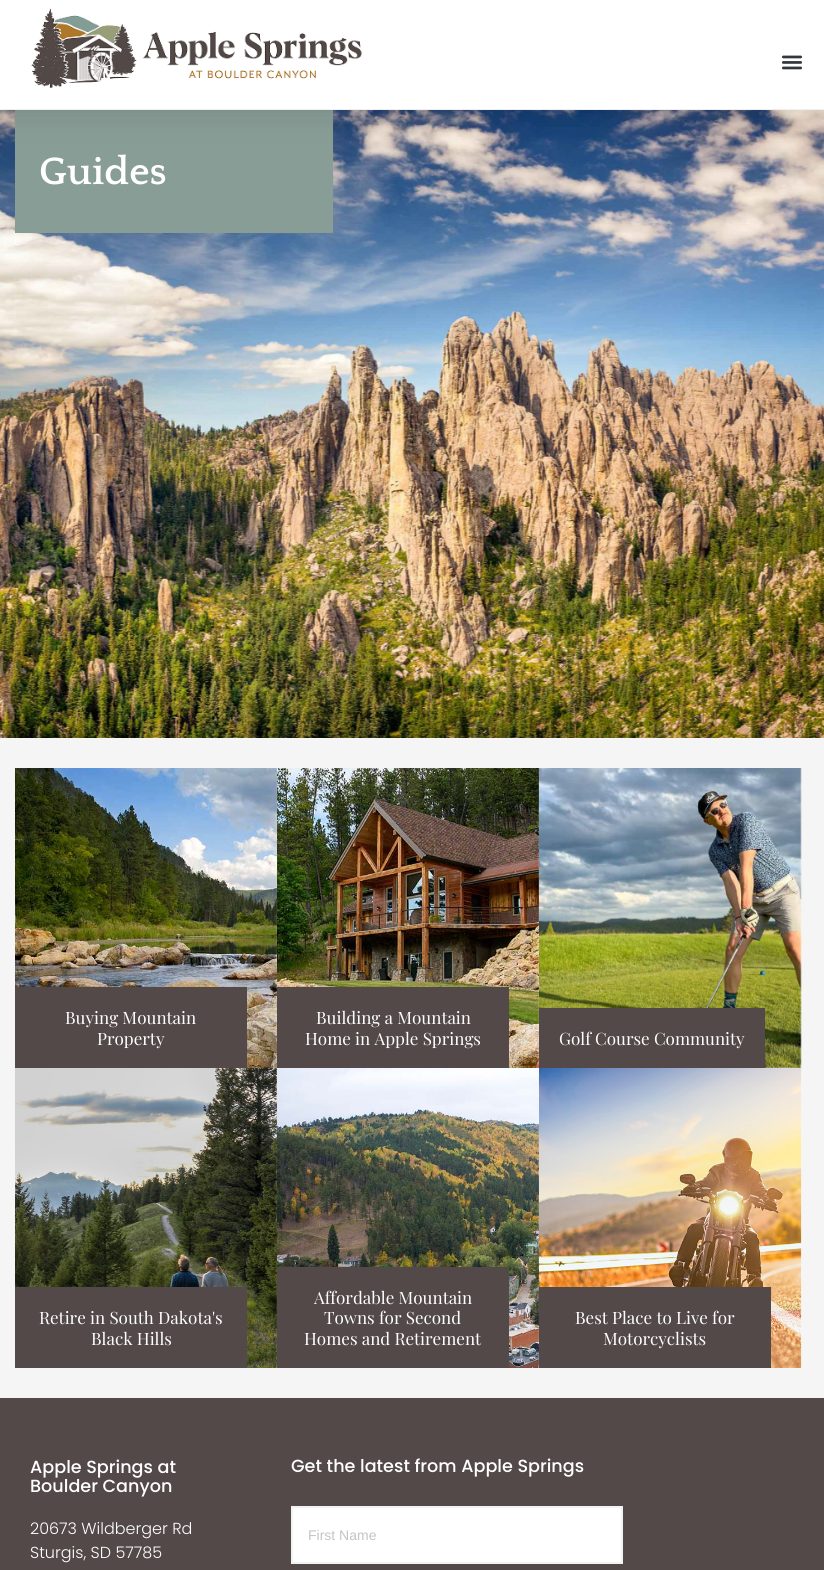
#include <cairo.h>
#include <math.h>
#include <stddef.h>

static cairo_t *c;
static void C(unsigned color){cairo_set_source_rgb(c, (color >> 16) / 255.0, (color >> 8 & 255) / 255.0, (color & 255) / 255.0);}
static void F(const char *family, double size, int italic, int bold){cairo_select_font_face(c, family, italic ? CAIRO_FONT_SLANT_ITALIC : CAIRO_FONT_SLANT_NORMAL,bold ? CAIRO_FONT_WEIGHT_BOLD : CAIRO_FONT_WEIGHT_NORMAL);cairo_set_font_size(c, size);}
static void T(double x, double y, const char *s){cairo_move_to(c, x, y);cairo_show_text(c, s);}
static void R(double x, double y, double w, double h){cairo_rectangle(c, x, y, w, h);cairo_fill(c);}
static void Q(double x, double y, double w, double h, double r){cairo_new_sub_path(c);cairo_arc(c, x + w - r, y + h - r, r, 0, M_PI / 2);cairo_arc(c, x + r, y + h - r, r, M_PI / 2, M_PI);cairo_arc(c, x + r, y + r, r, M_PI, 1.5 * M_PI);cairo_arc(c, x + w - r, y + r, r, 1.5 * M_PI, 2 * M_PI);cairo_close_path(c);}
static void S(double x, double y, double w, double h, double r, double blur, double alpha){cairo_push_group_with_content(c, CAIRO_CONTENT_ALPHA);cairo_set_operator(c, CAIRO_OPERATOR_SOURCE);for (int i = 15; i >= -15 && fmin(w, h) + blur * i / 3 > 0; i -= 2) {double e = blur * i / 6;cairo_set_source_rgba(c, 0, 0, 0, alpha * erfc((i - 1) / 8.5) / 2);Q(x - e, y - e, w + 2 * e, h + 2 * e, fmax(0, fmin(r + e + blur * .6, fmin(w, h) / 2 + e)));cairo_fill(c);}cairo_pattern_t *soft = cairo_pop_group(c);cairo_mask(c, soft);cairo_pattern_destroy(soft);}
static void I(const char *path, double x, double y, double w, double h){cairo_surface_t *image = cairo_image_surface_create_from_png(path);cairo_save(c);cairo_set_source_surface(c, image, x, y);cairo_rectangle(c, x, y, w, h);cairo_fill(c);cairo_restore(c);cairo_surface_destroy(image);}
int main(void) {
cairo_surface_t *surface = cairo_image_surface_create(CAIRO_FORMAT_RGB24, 824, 1570);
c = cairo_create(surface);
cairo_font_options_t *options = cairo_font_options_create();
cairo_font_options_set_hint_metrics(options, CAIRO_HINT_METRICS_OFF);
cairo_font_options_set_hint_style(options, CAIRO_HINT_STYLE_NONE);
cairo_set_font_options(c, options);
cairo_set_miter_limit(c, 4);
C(0xf5f5f5);
cairo_paint(c);
I("3.png",0,110,824,628);
C(0x889d96);
R(15,110,318,123);
C(0x000000);
S(0,5,824,110,0,15,.1);
C(0xffffff);
R(0,0,824,109);
C(0xefefef);
R(0,109,824,1);
I("1.png",31,8,331,80);
I("2.png",781,55,22,15);
F("Quattrocento",40,0,1);
C(0xffffff);
T(39,184,"Guides");
I("4.png",15,768,262,300);
C(0x524948);
R(15,987,232,81);
F("Playfair Display",17,0,0);
C(0xffffff);
T(65,1024,"Buying Mountain");
T(97,1045,"Property");
I("5.png",277,768,262,300);
C(0x524948);
R(277,987,232,81);
C(0xffffff);
T(316,1024,"Building a Mountain");
T(305,1045,"Home in Apple Springs");
I("6.png",539,768,263,300);
C(0x524948);
R(539,1008,226,60);
C(0xffffff);
T(559,1045,"Golf Course Community");
I("7.png",15,1068,262,300);
C(0x524948);
R(15,1287,232,81);
C(0xffffff);
T(39,1324,"Retire in South Dakota's");
T(91,1345,"Black Hills");
I("8.png",277,1068,262,300);
C(0x524948);
R(277,1267,232,101);
C(0xffffff);
T(314,1304,"Affordable Mountain");
T(324,1324,"Towns for Second");
T(304,1345,"Homes and Retirement");
I("9.png",539,1068,263,300);
C(0x524948);
R(539,1287,232,81);
C(0xffffff);
T(575,1324,"Best Place to Live for");
T(603,1345,"Motorcyclists");
C(0x524948);
R(0,1398,824,172);
F("Poppins Medium",17.6,0,0);
C(0xffffff);
T(30,1473,"Apple Springs at");
T(30,1492,"Boulder Canyon");
F("Poppins Light",16,0,0);
T(30,1534,"20673 Wildberger Rd");
T(30,1558,"Sturgis, SD 57785");
F("Poppins Medium",17.6,0,0);
T(291,1472,"Get the latest from Apple Springs");
cairo_rectangle(c,292,1507,330,56);
cairo_fill_preserve(c);
C(0xf1f2f2);
cairo_stroke(c);
F("Liberation Sans",14,0,0);
C(0xc4c4c4);
T(308,1540,"First Name");
cairo_surface_write_to_png(surface, "o.png");
cairo_font_options_destroy(options);
cairo_destroy(c);
cairo_surface_destroy(surface);
return 0;
}
